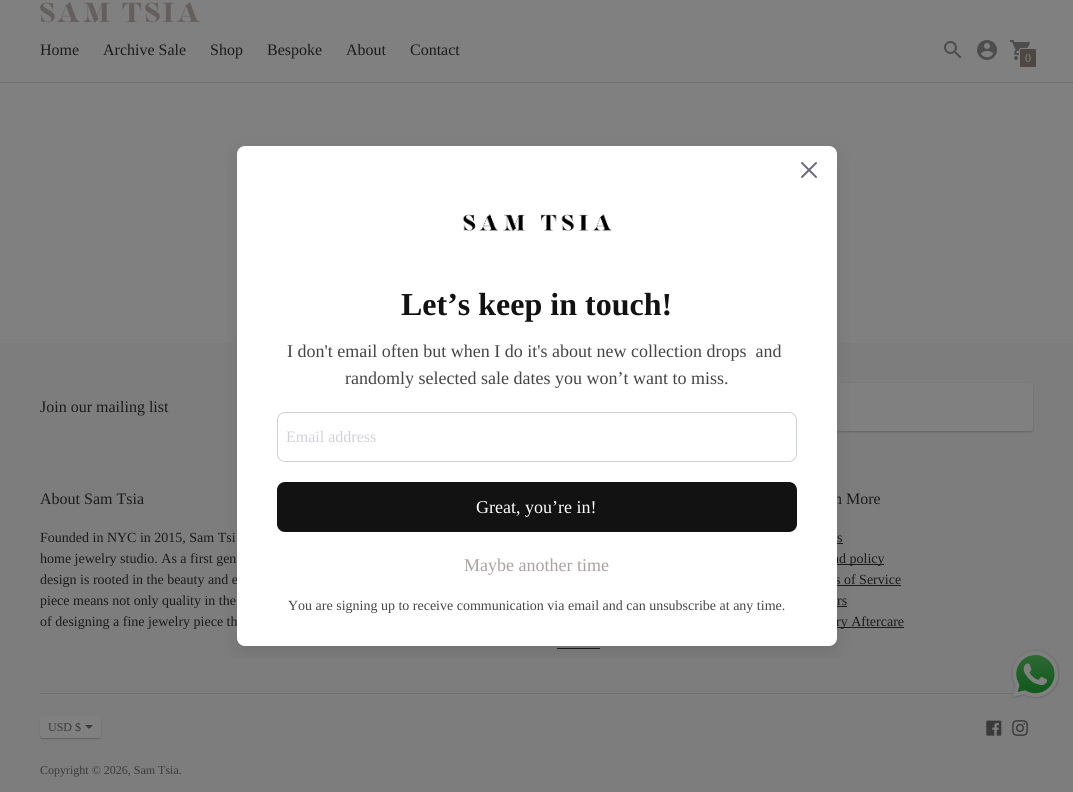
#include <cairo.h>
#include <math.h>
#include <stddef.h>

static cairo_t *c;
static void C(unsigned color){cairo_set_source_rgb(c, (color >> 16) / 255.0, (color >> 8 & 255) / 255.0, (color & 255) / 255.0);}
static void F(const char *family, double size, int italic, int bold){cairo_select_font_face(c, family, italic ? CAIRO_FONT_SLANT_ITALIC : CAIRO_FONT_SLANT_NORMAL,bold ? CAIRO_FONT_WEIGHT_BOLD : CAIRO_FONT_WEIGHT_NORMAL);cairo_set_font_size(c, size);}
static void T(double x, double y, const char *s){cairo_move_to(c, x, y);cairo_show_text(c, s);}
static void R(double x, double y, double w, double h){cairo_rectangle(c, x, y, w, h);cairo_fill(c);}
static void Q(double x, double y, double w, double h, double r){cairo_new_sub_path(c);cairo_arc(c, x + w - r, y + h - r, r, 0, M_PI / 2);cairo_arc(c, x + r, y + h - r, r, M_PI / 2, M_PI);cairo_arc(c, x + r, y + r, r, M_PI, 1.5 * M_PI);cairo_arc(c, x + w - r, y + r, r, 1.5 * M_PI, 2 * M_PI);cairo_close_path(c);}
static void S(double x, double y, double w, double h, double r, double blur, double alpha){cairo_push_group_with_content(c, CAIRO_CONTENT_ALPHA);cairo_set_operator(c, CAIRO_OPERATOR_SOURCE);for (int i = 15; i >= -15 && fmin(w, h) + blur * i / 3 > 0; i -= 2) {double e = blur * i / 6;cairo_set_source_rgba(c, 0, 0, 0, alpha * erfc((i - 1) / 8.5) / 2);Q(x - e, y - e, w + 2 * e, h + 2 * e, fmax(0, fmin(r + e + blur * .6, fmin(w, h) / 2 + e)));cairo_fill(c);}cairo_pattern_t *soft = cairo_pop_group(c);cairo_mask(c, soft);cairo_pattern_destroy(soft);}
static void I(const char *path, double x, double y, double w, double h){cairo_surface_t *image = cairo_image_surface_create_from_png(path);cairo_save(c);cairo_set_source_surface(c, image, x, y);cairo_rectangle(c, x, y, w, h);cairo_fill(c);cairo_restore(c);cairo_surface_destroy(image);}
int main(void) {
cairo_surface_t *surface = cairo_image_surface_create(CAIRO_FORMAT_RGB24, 1073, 792);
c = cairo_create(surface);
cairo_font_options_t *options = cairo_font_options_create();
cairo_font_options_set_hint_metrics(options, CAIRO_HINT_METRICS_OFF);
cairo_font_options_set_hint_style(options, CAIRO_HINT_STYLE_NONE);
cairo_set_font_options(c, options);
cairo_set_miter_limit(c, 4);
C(0x808080);
cairo_paint(c);
C(0x717171);
R(0,82,1073,1);
I("1.png",40,2,160,21);
F("Liberation Serif",16,0,0);
C(0x1b1b1b);
T(40,55,"Home");
T(103,55,"Archive Sale");
T(210,55,"Shop");
T(267,55,"Bespoke");
T(346,55,"About");
T(410,55,"Contact");
I("2.png",944,41,18,18);
I("3.png",977,40,20,20);
I("4.png",1010,40,20,20);
C(0x4e4641);
Q(1019.5,48.5,17,19,1.5);
cairo_fill_preserve(c);
C(0x808080);
cairo_set_line_width(c,1);
cairo_stroke(c);
F("Liberation Serif",12,0,0);
T(1025,62,"0");
C(0x7d7d7d);
R(0,343,1073,449);
F("Liberation Serif",16,0,0);
C(0x1b1b1b);
T(40,412,"Join our mailing list");
C(0x000000);
S(557,384,476,48,3,1,.2);
C(0x808080);
Q(557,383,476,48,3);
cairo_fill(c);
C(0x1b1b1b);
T(40,504,"About Sam Tsia");
F("Liberation Serif",14,0,0);
T(40,542,"Founded in NYC in 2015, Sam Tsi");
T(40,563,"home jewelry studio. As a first gen");
T(40,584,"design is rooted in the beauty and e");
T(40,605,"piece means not only quality in the");
T(40,626,"of designing a fine jewelry piece th");
F("Liberation Serif",16,0,0);
T(834,504,"n More");
F("Liberation Serif",14,0,0);
T(837,542,"s");
R(837,543,6,1);
R(837,564,47,1);
T(832,563,"nd policy");
T(835,584,"s of Service");
R(837,585,64,1);
T(837,605,"rs");
R(837,606,10,1);
R(837,627,67,1);
T(836,626,"ry Aftercare");
R(557,648,43,1);
C(0x717171);
R(40,693,974,1);
C(0x000000);
S(40,717,61,22,3,.5,.2);
C(0x808080);
Q(40,716,61,22,3);
cairo_fill(c);
F("Liberation Serif",12,0,0);
C(0x3a3a3a);
T(48,731,"USD $");
C(0x3b3b3b);
cairo_new_path(c);
cairo_move_to(c,89,729);
cairo_line_to(c,93,725);
cairo_line_to(c,85,725);
cairo_close_path(c);
cairo_fill(c);
C(0x3a3a3a);
T(40,774,"Copyright © 2026, Sam Tsia.");
I("5.png",986,720,16,16);
I("6.png",1012,720,16,16);
cairo_save(c);
cairo_rectangle(c,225,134,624,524);
cairo_clip(c);
C(0x121127);
S(237,154,600,500,8,10,.1);
cairo_restore(c);
C(0xffffff);
Q(237,146,600,500,8);
cairo_fill(c);
I("7.png",801,162,16,16);
I("8.png",462,214,150,18);
F("Liberation Serif",32,0,1);
C(0x121212);
T(401,315,"Let’s keep in touch!");
F("Liberation Serif",18,0,0);
C(0x454545);
T(287,357,"I don't email often but when I do it's about new collection drops  and");
T(345,384,"randomly selected sale dates you won’t want to miss.");
Q(277.5,412.5,519,49,7.5);
C(0xd1d1db);
cairo_stroke(c);
F("Liberation Serif",16,0,0);
T(286,442,"Email address");
C(0x121212);
Q(277,482,520,50,8);
cairo_fill(c);
F("Liberation Serif",18,0,0);
C(0xffffff);
T(476,513,"Great, you’re in!");
C(0xaba1a1);
T(464,571,"Maybe another time");
F("Liberation Serif",14,0,0);
C(0x454545);
T(288,610,"You are signing up to receive communication via email and can unsubscribe at any time.");
I("9.png",1011,649,49,50);
cairo_surface_write_to_png(surface, "o.png");
cairo_font_options_destroy(options);
cairo_destroy(c);
cairo_surface_destroy(surface);
return 0;
}
